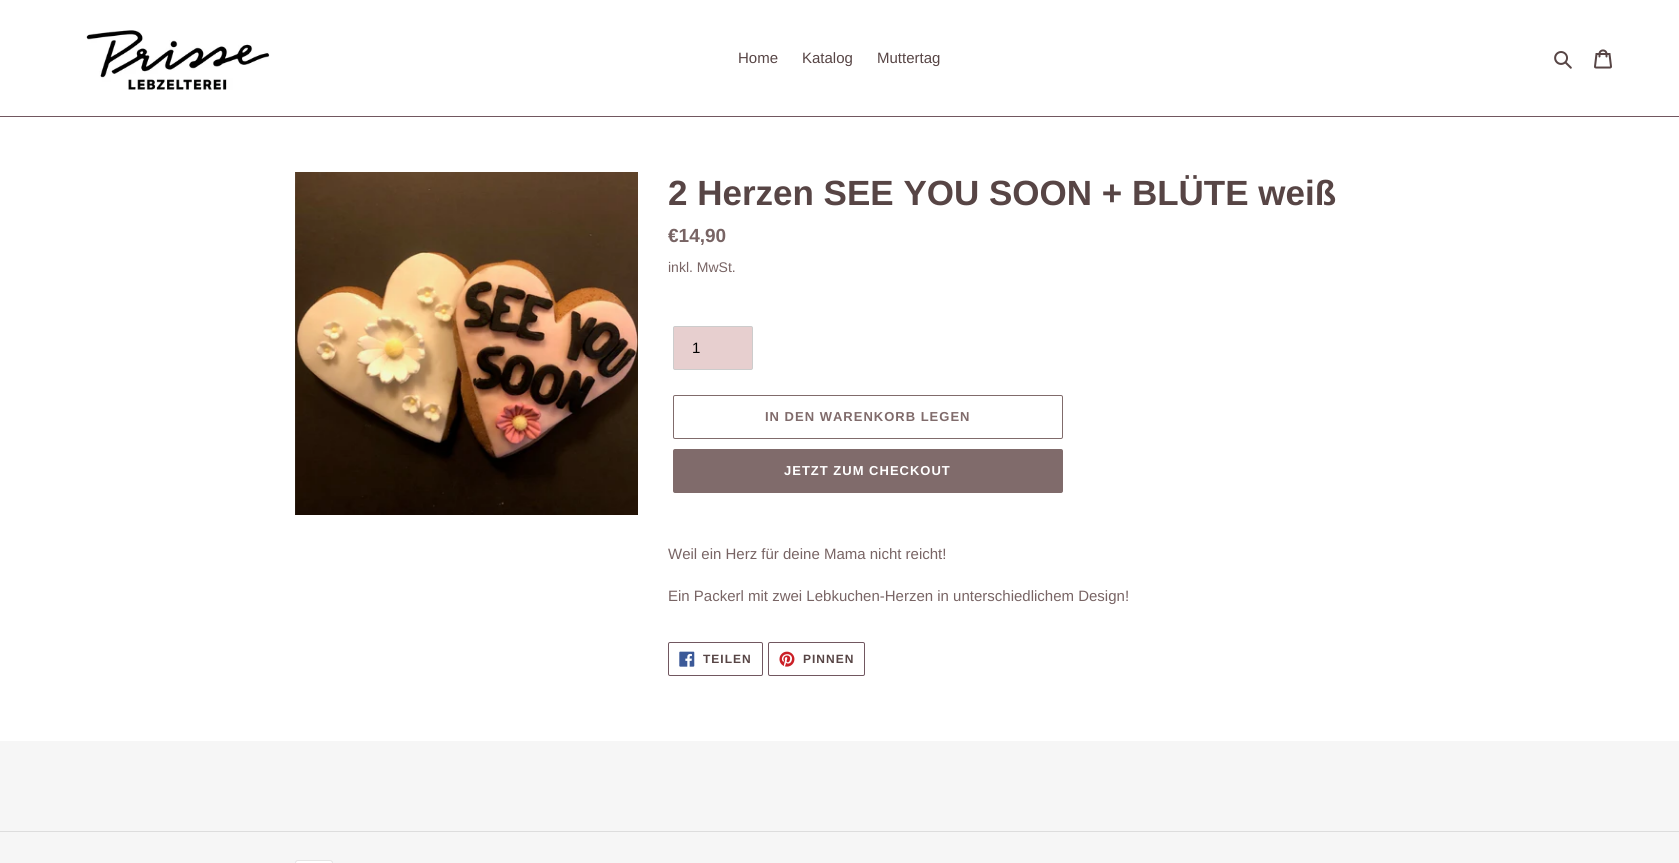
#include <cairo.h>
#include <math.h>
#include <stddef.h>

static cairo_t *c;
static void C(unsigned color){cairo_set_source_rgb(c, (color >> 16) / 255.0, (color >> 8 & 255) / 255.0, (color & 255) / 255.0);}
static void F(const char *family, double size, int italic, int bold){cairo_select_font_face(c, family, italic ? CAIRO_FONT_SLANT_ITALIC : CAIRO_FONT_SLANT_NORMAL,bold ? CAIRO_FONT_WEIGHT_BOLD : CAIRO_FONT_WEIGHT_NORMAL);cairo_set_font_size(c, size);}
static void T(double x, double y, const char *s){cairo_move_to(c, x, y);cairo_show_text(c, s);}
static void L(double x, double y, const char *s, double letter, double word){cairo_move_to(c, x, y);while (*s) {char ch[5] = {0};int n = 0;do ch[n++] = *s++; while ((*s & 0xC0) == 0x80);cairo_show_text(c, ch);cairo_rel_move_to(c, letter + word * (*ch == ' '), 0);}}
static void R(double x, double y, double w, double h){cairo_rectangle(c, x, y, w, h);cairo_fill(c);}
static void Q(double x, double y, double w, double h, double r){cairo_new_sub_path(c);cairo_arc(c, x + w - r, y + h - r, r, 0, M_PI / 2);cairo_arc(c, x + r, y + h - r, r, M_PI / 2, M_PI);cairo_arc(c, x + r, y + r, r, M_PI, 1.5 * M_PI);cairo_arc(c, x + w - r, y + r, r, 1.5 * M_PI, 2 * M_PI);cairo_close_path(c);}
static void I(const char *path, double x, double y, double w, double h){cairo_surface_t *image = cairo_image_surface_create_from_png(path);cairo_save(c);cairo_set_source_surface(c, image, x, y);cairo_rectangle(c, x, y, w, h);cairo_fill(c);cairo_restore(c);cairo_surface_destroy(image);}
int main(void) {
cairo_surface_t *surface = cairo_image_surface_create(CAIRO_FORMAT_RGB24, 1679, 863);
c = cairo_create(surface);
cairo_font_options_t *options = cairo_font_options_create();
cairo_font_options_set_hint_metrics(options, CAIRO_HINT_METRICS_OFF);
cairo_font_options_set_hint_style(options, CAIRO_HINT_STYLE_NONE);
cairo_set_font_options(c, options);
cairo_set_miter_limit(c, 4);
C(0xffffff);
cairo_paint(c);
C(0x715760);
R(0,116,1679,1);
I("1.png",86,30,184,60);
F("Liberation Sans",15,0,0);
C(0x574545);
T(738,63,"Home");
T(802,63,"Katalog");
T(877,63,"Muttertag");
I("2.png",1554,51,18,18);
I("3.png",1594,49,18,20);
I("4.png",295,172,343,343);
F("Liberation Sans",35,0,1);
T(668,205,"2 Herzen SEE YOU SOON + BLÜTE weiß");
F("Liberation Sans",19,0,1);
C(0x786464);
T(668,242,"€14,90");
F("Liberation Sans",14,0,0);
T(668,272,"inkl. MwSt.");
C(0xe7cfcf);
Q(673.5,326.5,79,43,1.5);
cairo_fill_preserve(c);
C(0xcccccc);
cairo_set_line_width(c,1);
cairo_stroke(c);
F("Liberation Sans",15,0,0);
C(0x000000);
T(692,353,"1");
Q(673.5,395.5,389,43,1.5);
C(0x806b6b);
cairo_stroke(c);
F("Liberation Sans",13,0,1);
L(765,421,"IN DEN WARENKORB LEGEN",1,0);
Q(673,449,390,44,2);
cairo_fill(c);
C(0xffffff);
L(784,475,"JETZT ZUM CHECKOUT",1,0);
F("Liberation Sans",15,0,0);
C(0x786464);
T(668,559,"Weil ein Herz für deine Mama nicht reicht!");
T(668,601,"Ein Packerl mit zwei Lebkuchen-Herzen in unterschiedlichem Design!");
Q(668.5,642.5,94,33,1.5);
C(0x715760);
cairo_stroke(c);
I("5.png",679,651,16,16);
F("Liberation Sans",12,0,1);
C(0x574545);
L(703,663,"TEILEN",1,0);
Q(768.5,642.5,96,33,1.5);
C(0x715760);
cairo_stroke(c);
I("6.png",779,651,16,16);
C(0x574545);
L(803,663,"PINNEN",1,0);
C(0xf6f6f6);
R(0,741,1679,122);
C(0xdddddd);
R(0,831,1679,1);
I("7.png",295,860,38,3);
cairo_surface_write_to_png(surface, "o.png");
cairo_font_options_destroy(options);
cairo_destroy(c);
cairo_surface_destroy(surface);
return 0;
}
